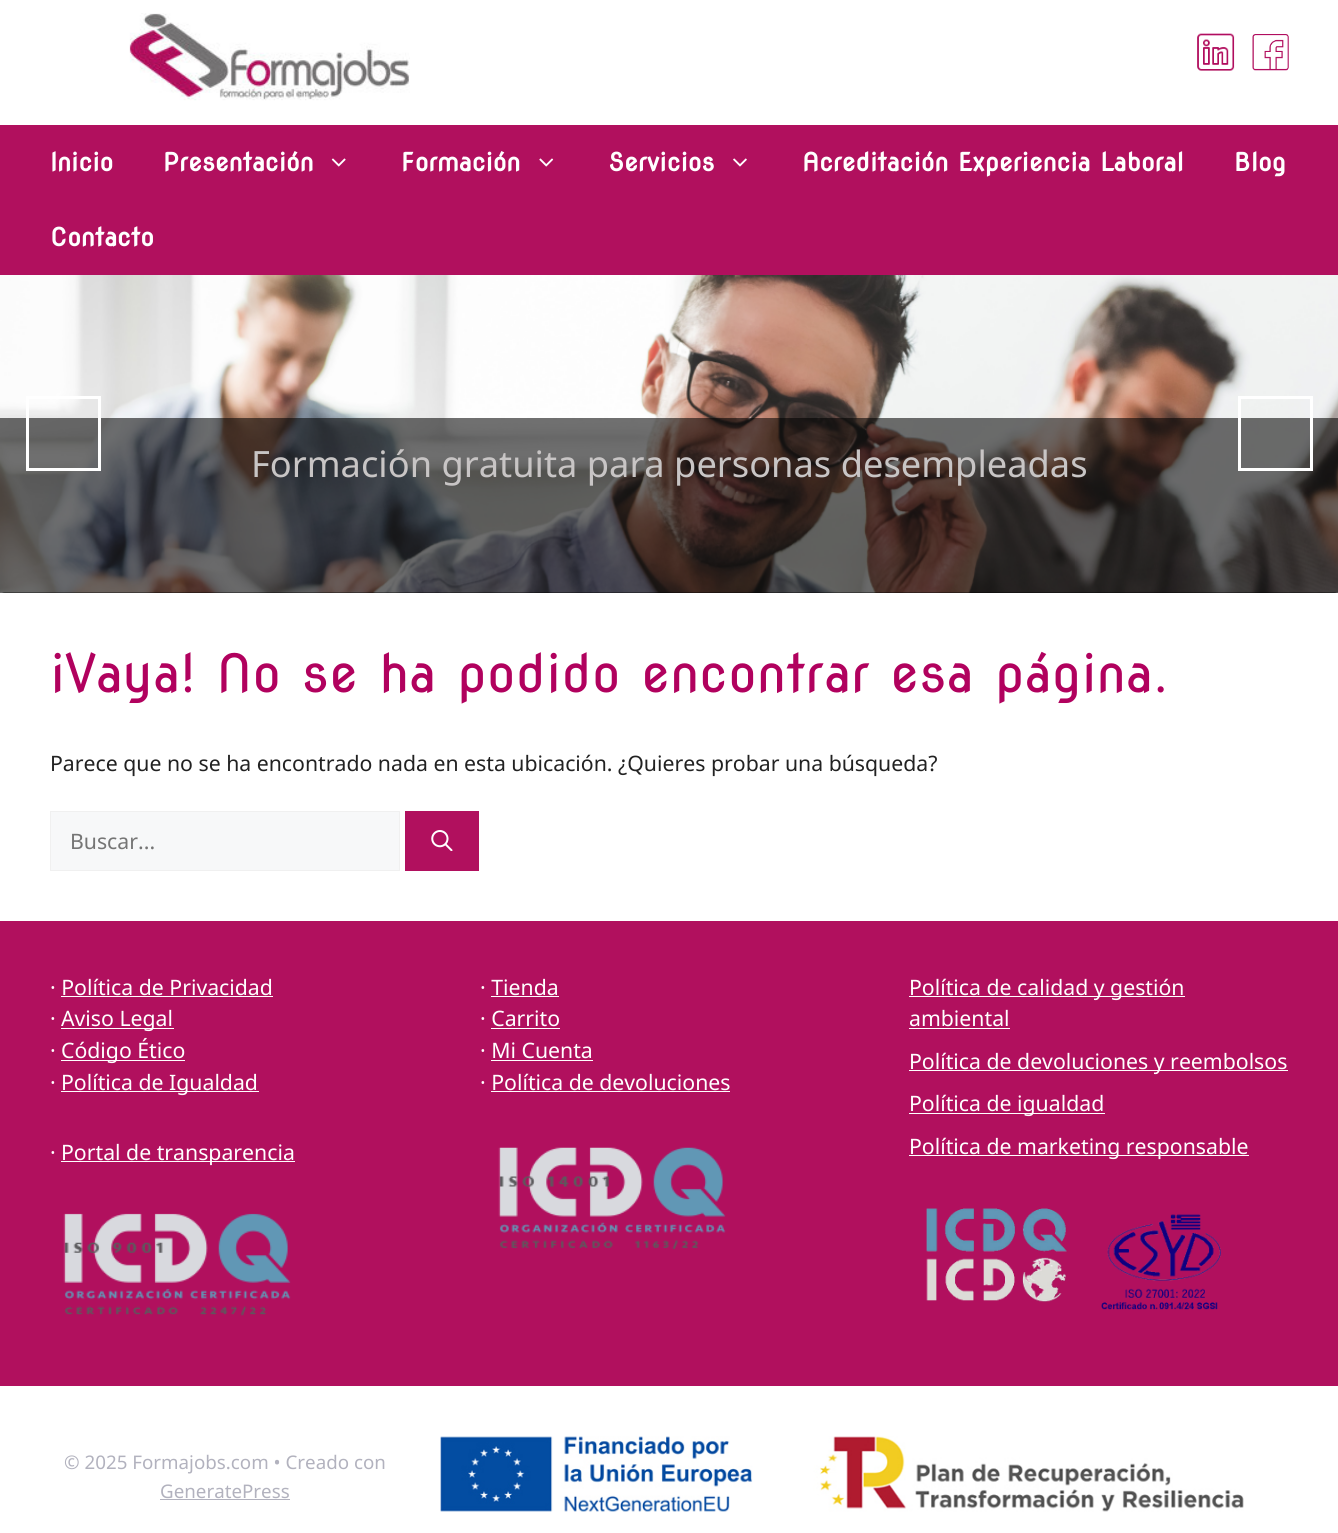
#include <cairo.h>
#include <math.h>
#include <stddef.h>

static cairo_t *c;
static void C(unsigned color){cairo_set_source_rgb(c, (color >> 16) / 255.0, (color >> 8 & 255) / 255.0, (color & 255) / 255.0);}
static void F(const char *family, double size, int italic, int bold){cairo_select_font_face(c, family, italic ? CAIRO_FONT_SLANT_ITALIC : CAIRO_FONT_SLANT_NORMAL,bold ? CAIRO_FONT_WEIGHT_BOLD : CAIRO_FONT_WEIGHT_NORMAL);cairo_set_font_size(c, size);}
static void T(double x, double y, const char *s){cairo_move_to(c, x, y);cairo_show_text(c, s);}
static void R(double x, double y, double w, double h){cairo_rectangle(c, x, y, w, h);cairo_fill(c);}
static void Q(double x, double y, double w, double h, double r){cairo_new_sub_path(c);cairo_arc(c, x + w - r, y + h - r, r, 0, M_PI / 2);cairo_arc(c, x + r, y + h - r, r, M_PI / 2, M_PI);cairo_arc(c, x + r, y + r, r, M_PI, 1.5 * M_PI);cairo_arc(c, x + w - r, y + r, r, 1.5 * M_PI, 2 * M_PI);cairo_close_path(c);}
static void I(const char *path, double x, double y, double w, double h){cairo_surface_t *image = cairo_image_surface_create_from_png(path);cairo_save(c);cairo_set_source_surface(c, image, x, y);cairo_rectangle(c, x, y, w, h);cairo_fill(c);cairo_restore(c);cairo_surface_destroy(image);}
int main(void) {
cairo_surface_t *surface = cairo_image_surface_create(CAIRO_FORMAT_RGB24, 1338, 1533);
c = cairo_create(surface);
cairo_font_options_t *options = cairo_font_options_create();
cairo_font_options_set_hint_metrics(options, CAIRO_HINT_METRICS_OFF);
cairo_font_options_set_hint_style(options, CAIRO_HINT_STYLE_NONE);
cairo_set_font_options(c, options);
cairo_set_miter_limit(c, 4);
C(0xffffff);
cairo_paint(c);
I("1.png",129,13,281,88);
I("2.png",1197,33,38,38);
I("3.png",1252,34,37,37);
C(0xb1105e);
R(0,125,1338,150);
F("Nova Round",25,0,1);
C(0xffffff);
T(50,171,"Inicio");
T(163,171,"Presentación");
I("4.png",331,158,15,9);
T(401,171,"Formación");
I("5.png",539,158,15,9);
T(608,171,"Servicios");
I("6.png",733,158,14,9);
T(802,171,"Acreditación Experiencia Laboral");
T(1234,171,"Blog");
T(50,246,"Contacto");
C(0x000000);
Q(0,275,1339,318,5);
cairo_fill(c);
I("7.png",0,275,1338,318);
cairo_set_source_rgba(c,0,0,0,0.56);
R(0,418,1338,175);
cairo_rectangle(c,27.5,397.5,72,72);
C(0xffffff);
cairo_set_line_width(c,3);
cairo_stroke(c);
cairo_rectangle(c,1239.5,397.5,72,72);
cairo_stroke(c);
F("Noto Sans",36.25,0,0);
C(0xc8c5c5);
T(251,477,"Formación gratuita para personas desempleadas");
F("Nova Round",52.5,0,0);
C(0xb1015e);
T(50,692,"¡Vaya! No se ha podido encontrar esa página.");
F("Noto Sans",21.25,0,0);
C(0x222222);
T(50,771,"Parece que no se ha encontrado nada en esta ubicación. ¿Quieres probar una búsqueda?");
C(0xf7f8f9);
cairo_rectangle(c,50.5,811.5,349,59);
cairo_fill_preserve(c);
C(0xf0f0f0);
cairo_set_line_width(c,1);
cairo_stroke(c);
C(0x757575);
T(70,849,"Buscar...");
C(0xb1105e);
R(405,811,74,60);
I("8.png",431,830,22,21);
R(0,921,1338,465);
C(0xffffff);
T(50,995,"· Política de Privacidad");
R(61,996,212,1);
T(50,1026,"·");
R(61,1028,113,1);
T(61,1026,"Aviso Legal");
T(50,1058,"·");
R(61,1060,124,1);
T(61,1058,"Código Ético");
T(50,1090,"·");
R(61,1091,198,1);
T(61,1090,"Política de Igualdad");
T(50,1160,"·");
R(61,1161,234,1);
T(61,1160,"Portal de transparencia");
I("9.png",63,1213,228,103);
T(480,995,"· Tienda");
R(491,996,68,1);
T(480,1026,"· Carrito");
R(491,1028,69,1);
T(480,1058,"· Mi Cuenta");
R(491,1060,102,1);
T(480,1090,"· Política de devoluciones");
R(491,1091,239,1);
I("10.png",498,1147,228,103);
R(909,996,276,1);
T(909,995,"Política de calidad y gestión");
T(909,1026,"ambiental");
R(909,1028,101,1);
R(909,1070,379,1);
T(909,1069,"Política de devoluciones y reembolsos");
R(909,1113,196,1);
T(909,1111,"Política de igualdad");
R(909,1155,340,1);
T(909,1154,"Política de marketing responsable");
I("11.png",926,1208,295,102);
F("Noto Sans",18.75,0,0);
C(0xb2b2be);
T(64,1469,"© 2025 Formajobs.com • Creado con");
T(160,1498,"GeneratePress");
R(160,1499,130,1);
I("12.png",440,1436,804,76);
cairo_surface_write_to_png(surface, "o.png");
cairo_font_options_destroy(options);
cairo_destroy(c);
cairo_surface_destroy(surface);
return 0;
}
